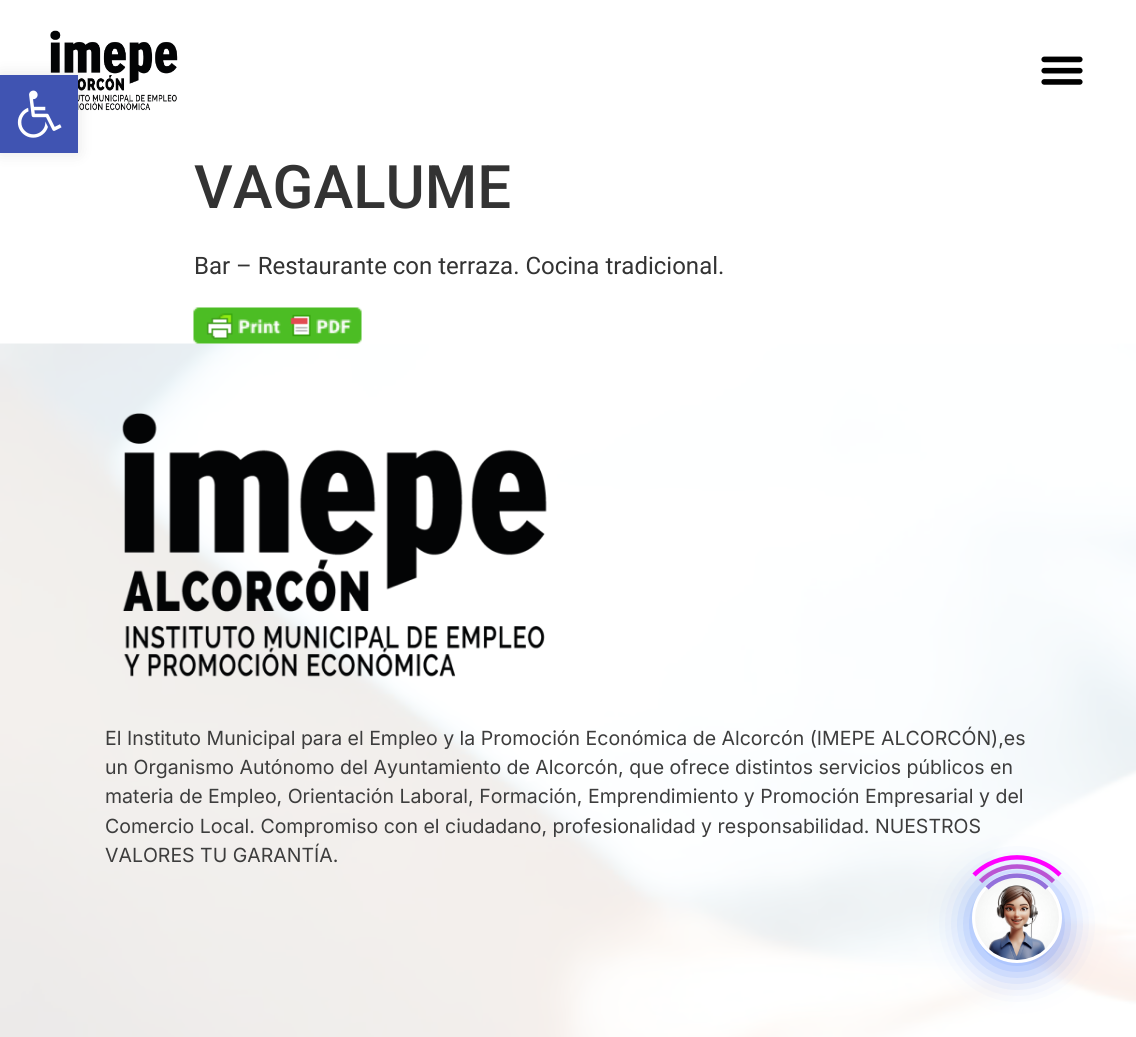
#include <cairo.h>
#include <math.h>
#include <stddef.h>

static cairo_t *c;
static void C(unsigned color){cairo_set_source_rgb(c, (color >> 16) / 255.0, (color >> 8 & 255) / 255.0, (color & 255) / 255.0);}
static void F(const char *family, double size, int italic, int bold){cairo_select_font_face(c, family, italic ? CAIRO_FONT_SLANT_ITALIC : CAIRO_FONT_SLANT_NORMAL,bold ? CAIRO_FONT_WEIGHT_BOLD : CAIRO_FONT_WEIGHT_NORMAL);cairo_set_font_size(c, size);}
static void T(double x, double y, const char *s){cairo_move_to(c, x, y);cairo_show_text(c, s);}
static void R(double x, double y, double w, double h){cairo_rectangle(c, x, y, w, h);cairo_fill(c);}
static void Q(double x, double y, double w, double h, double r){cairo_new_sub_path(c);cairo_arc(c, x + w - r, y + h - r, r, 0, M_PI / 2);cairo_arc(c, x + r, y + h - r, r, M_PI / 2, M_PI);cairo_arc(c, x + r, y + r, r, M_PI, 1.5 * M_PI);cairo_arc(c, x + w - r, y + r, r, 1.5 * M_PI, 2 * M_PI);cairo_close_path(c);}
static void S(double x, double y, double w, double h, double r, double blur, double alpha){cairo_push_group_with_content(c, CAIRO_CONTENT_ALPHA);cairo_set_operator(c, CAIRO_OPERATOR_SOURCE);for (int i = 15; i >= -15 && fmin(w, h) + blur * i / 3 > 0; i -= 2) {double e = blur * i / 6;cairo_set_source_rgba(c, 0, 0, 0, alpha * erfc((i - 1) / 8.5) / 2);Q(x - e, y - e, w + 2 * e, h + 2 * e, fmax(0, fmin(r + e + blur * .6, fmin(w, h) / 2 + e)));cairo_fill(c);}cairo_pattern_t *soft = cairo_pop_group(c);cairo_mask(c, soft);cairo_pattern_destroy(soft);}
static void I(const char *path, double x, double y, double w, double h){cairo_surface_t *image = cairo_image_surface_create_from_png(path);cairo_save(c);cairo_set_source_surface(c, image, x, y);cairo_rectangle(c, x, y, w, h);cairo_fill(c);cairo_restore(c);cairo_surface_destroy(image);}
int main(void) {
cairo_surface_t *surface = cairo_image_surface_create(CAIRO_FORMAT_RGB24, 1136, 1037);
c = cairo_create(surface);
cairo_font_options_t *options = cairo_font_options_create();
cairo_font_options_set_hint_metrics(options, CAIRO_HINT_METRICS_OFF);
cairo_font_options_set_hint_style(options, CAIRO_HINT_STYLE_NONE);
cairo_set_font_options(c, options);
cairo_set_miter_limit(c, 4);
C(0xffffff);
cairo_paint(c);
I("1.png",50,30,128,81);
I("2.png",1041,56,42,29);
C(0x000000);
S(0,75,78,78,0,7.5,.1);
C(0x4054b2);
R(0,75,78,78);
I("3.png",17,90,45,48);
F("Roboto Medium",60,0,0);
C(0x333333);
T(194,208,"VAGALUME");
F("Roboto",24,0,0);
T(194,274,"Bar – Restaurante con terraza. Cocina tradicional.");
I("5.png",0,343,1136,694);
I("4.png",193,307,169,37);
I("6.png",122,413,425,264);
F("Inter",19.5,0,0);
C(0x3d3d3d);
T(105,745,"El Instituto Municipal para el Empleo y la Promoción Económica de Alcorcón (IMEPE ALCORCÓN),es");
T(105,774,"un Organismo Autónomo del Ayuntamiento de Alcorcón, que ofrece distintos servicios públicos en");
T(105,803,"materia de Empleo, Orientación Laboral, Formación, Emprendimiento y Promoción Empresarial y del");
T(105,833,"Comercio Local. Compromiso con el ciudadano, profesionalidad y responsabilidad. NUESTROS");
T(105,862,"VALORES TU GARANTÍA.");
C(0x004dff);
S(972,879,90,90,45,18,.5);
C(0xffffff);
cairo_arc(c,1017,918,45,0,2 * M_PI);
cairo_fill(c);
I("7.png",975,877,84,83);
cairo_new_path(c);
cairo_move_to(c,987,888);
cairo_curve_to(c,1003,871.5,1031,871.5,1047,888);
C(0x9370db);
cairo_set_line_width(c,4.5);
cairo_stroke(c);
cairo_new_path(c);
cairo_move_to(c,980.5,881.5);
cairo_curve_to(c,1000.5,861.5,1033.5,861.5,1053.5,881.5);
C(0xba55d3);
cairo_stroke(c);
cairo_new_path(c);
cairo_move_to(c,974,875);
cairo_curve_to(c,997.5,851.5,1036.5,851.5,1060,875);
C(0xff00ff);
cairo_stroke(c);
cairo_surface_write_to_png(surface, "o.png");
cairo_font_options_destroy(options);
cairo_destroy(c);
cairo_surface_destroy(surface);
return 0;
}
